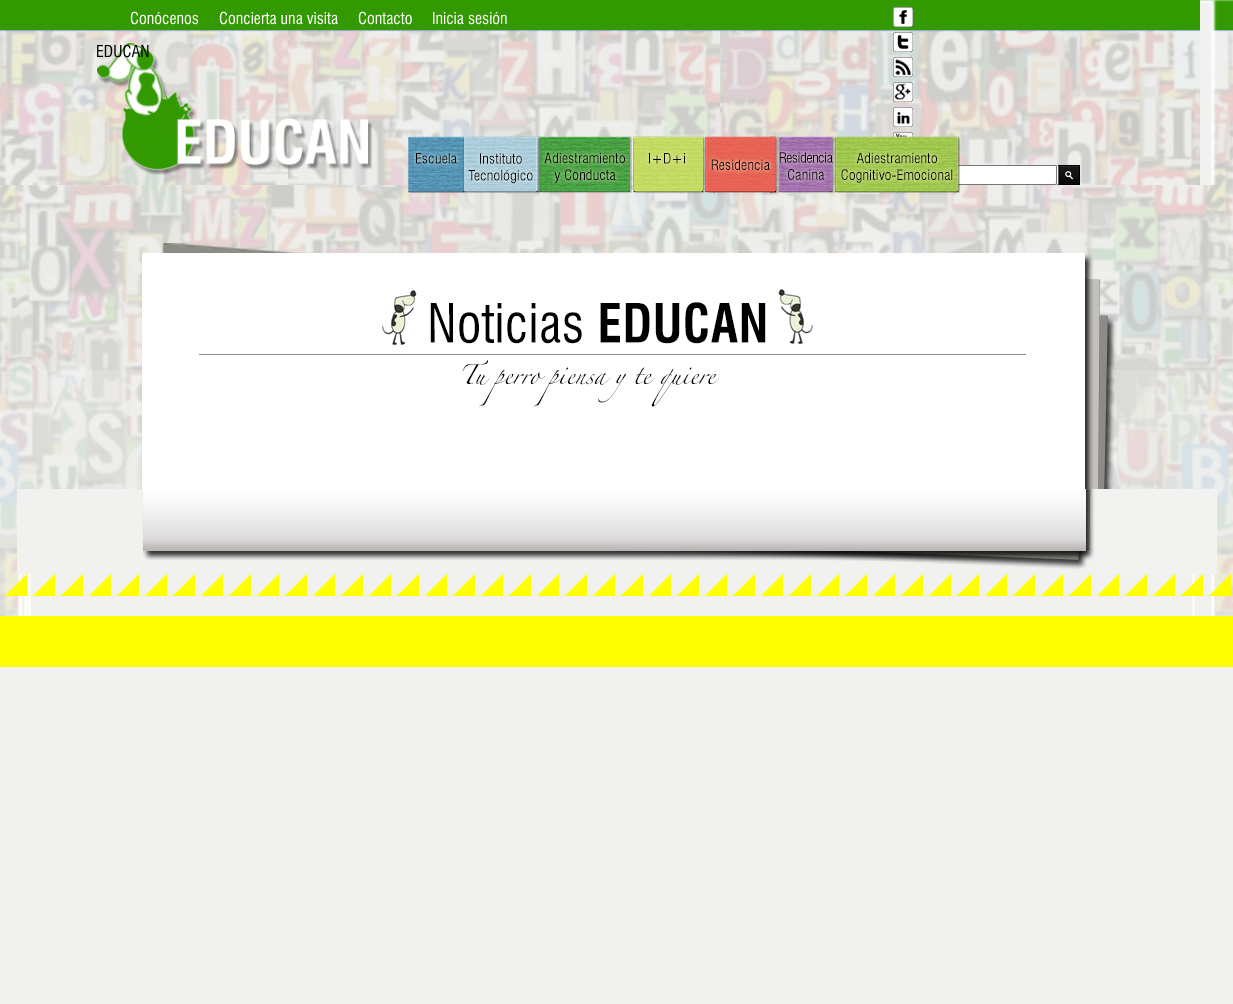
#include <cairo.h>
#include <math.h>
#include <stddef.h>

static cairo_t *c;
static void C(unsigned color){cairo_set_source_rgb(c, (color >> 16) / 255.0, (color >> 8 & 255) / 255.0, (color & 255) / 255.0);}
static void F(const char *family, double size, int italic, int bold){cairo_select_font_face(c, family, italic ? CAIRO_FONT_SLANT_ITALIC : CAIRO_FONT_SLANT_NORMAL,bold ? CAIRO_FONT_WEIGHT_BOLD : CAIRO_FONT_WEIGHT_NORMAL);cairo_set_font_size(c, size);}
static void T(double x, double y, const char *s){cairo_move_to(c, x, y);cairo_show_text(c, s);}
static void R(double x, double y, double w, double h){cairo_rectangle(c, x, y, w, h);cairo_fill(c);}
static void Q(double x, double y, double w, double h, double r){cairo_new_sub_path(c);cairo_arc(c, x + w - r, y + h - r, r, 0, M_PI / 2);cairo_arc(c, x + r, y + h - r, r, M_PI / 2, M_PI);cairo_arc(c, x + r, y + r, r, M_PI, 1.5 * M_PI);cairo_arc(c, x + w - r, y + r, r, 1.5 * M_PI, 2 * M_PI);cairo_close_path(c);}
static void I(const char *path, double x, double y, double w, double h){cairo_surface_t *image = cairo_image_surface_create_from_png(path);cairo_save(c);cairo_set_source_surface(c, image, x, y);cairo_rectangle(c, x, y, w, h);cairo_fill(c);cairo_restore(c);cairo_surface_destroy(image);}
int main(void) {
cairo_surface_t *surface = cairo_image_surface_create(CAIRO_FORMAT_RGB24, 1233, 1004);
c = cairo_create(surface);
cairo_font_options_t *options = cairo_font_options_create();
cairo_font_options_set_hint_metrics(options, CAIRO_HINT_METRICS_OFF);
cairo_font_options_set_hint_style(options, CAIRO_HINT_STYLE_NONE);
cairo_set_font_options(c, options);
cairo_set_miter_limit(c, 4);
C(0xf1f1ef);
cairo_paint(c);
I("1.png",0,0,1233,616);
C(0x339901);
R(0,0,1200,30);
I("2.png",0,30,1200,155);
F("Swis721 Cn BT",16,0,0);
C(0xffffff);
T(130,24,"Conócenos");
T(219,24,"Concierta una visita");
T(358,24,"Contacto");
T(432,24,"Inicia sesión");
I("3.png",893,7,20,20);
I("4.png",893,32,20,20);
I("5.png",893,57,20,20);
I("6.png",893,82,20,20);
I("7.png",893,107,20,20);
I("8.png",893,132,20,5);
I("9.png",1055,165,25,20);
Q(887.5,165.5,169,19,1.5);
cairo_fill_preserve(c);
C(0x767676);
cairo_set_line_width(c,1);
cairo_stroke(c);
I("10.png",96,42,276,133);
C(0x000000);
T(96,57,"EDUCAN");
I("19.png",17,185,1200,304);
I("11.png",408,136,58,59);
I("12.png",463,136,77,58);
I("13.png",539,136,93,58);
I("14.png",633,136,72,58);
I("15.png",705,136,74,59);
I("16.png",776,136,59,59);
I("17.png",835,136,125,59);
I("18.png",1094,489,123,85);
I("20.png",17,489,1077,85);
I("21.png",0,574,1233,22);
C(0xffff00);
R(0,616,1233,51);
cairo_surface_write_to_png(surface, "o.png");
cairo_font_options_destroy(options);
cairo_destroy(c);
cairo_surface_destroy(surface);
return 0;
}
